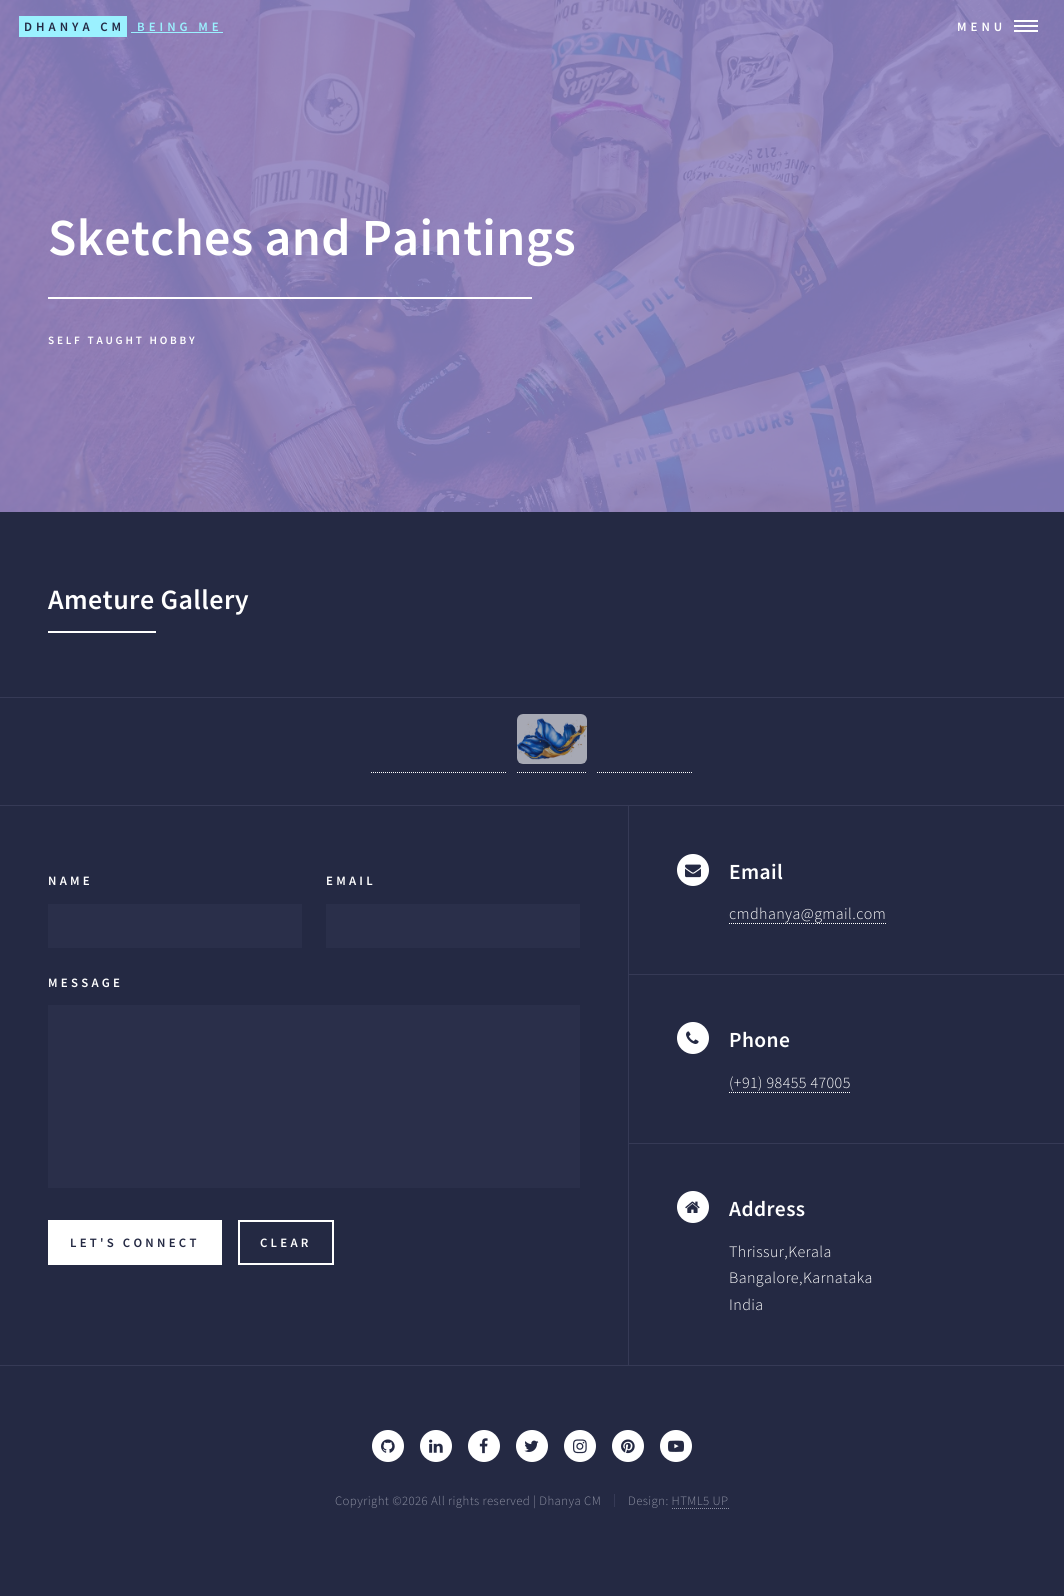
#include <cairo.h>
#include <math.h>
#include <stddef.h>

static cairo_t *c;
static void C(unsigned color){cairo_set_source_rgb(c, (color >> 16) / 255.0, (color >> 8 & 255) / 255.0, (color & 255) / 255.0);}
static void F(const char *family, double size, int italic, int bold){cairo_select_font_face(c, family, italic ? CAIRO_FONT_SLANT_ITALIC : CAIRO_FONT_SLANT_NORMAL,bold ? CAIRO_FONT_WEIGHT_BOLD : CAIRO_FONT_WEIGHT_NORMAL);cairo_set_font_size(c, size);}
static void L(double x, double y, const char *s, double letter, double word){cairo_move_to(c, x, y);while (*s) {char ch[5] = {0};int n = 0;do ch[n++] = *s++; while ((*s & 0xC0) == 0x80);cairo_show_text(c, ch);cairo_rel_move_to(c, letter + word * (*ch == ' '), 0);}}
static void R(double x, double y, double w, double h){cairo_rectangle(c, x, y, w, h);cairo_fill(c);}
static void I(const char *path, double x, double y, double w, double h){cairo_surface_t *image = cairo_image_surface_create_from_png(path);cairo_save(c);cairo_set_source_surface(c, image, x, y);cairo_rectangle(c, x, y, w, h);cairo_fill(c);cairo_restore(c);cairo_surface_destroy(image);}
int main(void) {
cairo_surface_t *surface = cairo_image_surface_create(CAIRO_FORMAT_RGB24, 1064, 1596);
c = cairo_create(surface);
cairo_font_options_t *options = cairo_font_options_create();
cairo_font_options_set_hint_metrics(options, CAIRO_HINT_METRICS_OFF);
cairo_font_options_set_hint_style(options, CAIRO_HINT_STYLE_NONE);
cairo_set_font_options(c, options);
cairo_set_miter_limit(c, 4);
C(0x242943);
cairo_paint(c);
I("1.png",0,0,1064,512);
C(0x9bf1ff);
R(19,16,108,21);
F("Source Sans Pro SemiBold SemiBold",12.8,0,0);
C(0x242943);
L(24,31,"DHANYA CM",4,0);
C(0x9bf1ff);
L(137,31,"BEING ME",4,0);
R(131,32,92,1);
C(0xffffff);
L(957,31,"MENU",4,0);
R(1014,20,24,2);
R(1014,30,24,2);
R(1014,25,24,2);
F("Source Sans Pro SemiBold SemiBold",52,0,0);
L(48,255,"Sketches and Paintings",.4,0);
R(48,297,484,2);
F("Source Sans Pro SemiBold SemiBold",11.25,0,0);
L(48,344,"SELF TAUGHT HOBBY",2.75,0);
C(0x363a56);
R(0,805,1064,1);
F("Source Sans Pro SemiBold SemiBold",28,0,0);
C(0xffffff);
L(48,609,"Ameture Gallery",.4,0);
R(48,631,108,2);
C(0x363a56);
R(0,697,1064,1);
cairo_new_path(c);
cairo_move_to(c,371,772.5);
cairo_line_to(c,507,772.5);
C(0xffffff);
cairo_set_line_width(c,1);
cairo_set_dash(c,(double[]){1,1},2,0);
cairo_stroke(c);
cairo_new_path(c);
cairo_move_to(c,517,772.5);
cairo_line_to(c,587,772.5);
cairo_stroke(c);
I("2.png",517,714,70,50);
cairo_new_path(c);
cairo_move_to(c,597,772.5);
cairo_line_to(c,693,772.5);
cairo_stroke(c);
C(0x363a56);
R(0,1365,1064,1);
R(628,806,1,559);
F("Source Sans Pro SemiBold SemiBold",12.8,0,0);
C(0xffffff);
L(48,885,"NAME",3.25,0);
C(0x2a2f4a);
R(48,904,254,44);
C(0xffffff);
L(326,885,"EMAIL",3.25,0);
C(0x2a2f4a);
R(326,904,254,44);
C(0xffffff);
L(48,987,"MESSAGE",3.25,0);
C(0x2a2f4a);
R(48,1005,532,183);
C(0xffffff);
R(48,1220,174,45);
C(0x242943);
L(70,1247,"LET'S CONNECT",3.25,0);
cairo_rectangle(c,239,1221,94,43);
C(0xffffff);
cairo_set_line_width(c,2);
cairo_set_dash(c,NULL,0,0);
cairo_stroke(c);
L(260,1247,"CLEAR",3.25,0);
cairo_new_path(c);
cairo_arc(c,693,870,16,0,2 * M_PI);
cairo_fill(c);
I("3.png",685,864,16,14);
F("Source Sans Pro SemiBold SemiBold",21.5,0,0);
L(729,879,"Email",.4,0);
F("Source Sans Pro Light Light",16,0,0);
L(729,919,"cmdhanya@gmail.com",.4,0);
cairo_new_path(c);
cairo_move_to(c,729,923.5);
cairo_line_to(c,886,923.5);
cairo_set_line_width(c,1);
cairo_set_dash(c,(double[]){1,1},2,0);
cairo_stroke(c);
C(0x363a56);
R(629,974,435,1);
C(0xffffff);
cairo_arc(c,693,1038,16,0,2 * M_PI);
cairo_fill(c);
I("4.png",686,1031,13,13);
F("Source Sans Pro SemiBold SemiBold",21.5,0,0);
L(729,1047,"Phone",.4,0);
F("Source Sans Pro Light Light",16,0,0);
L(729,1088,"(+91) 98455 47005",.4,0);
cairo_new_path(c);
cairo_move_to(c,729,1092.5);
cairo_line_to(c,851,1092.5);
cairo_stroke(c);
C(0x363a56);
R(629,1143,435,1);
C(0xffffff);
cairo_arc(c,693,1207,16,0,2 * M_PI);
cairo_fill(c);
I("5.png",685,1201,15,12);
F("Source Sans Pro SemiBold SemiBold",21.5,0,0);
L(729,1216,"Address",.4,0);
F("Source Sans Pro Light Light",16,0,0);
L(729,1257,"Thrissur,Kerala",.4,0);
L(729,1283,"Bangalore,Karnataka",.4,0);
L(729,1310,"India",.4,0);
cairo_new_path(c);
cairo_arc(c,388,1446,16,0,2 * M_PI);
cairo_fill(c);
I("6.png",381,1439,14,14);
cairo_arc(c,436,1446,16,0,2 * M_PI);
cairo_fill(c);
I("7.png",429,1439,14,14);
cairo_arc(c,484,1446,16,0,2 * M_PI);
cairo_fill(c);
I("8.png",479,1438,9,16);
cairo_arc(c,532,1446,16,0,2 * M_PI);
cairo_fill(c);
I("9.png",524,1440,15,12);
cairo_arc(c,580,1446,16,0,2 * M_PI);
cairo_fill(c);
I("10.png",573,1439,14,15);
cairo_arc(c,628,1446,16,0,2 * M_PI);
cairo_fill(c);
I("11.png",621,1439,14,15);
cairo_arc(c,676,1446,16,0,2 * M_PI);
cairo_fill(c);
I("12.png",668,1440,16,12);
F("Source Sans Pro Light Light",12.8,0,0);
C(0x8c8fa1);
L(335,1505,"Copyright ©2026 All rights reserved | Dhanya CM",.4,0);
C(0x363a56);
R(614,1494,1,13);
C(0x8c8fa1);
L(628,1505,"Design: HTML5 UP",.4,0);
cairo_new_path(c);
cairo_move_to(c,672,1508.5);
cairo_line_to(c,729,1508.5);
cairo_stroke(c);
cairo_surface_write_to_png(surface, "o.png");
cairo_font_options_destroy(options);
cairo_destroy(c);
cairo_surface_destroy(surface);
return 0;
}
